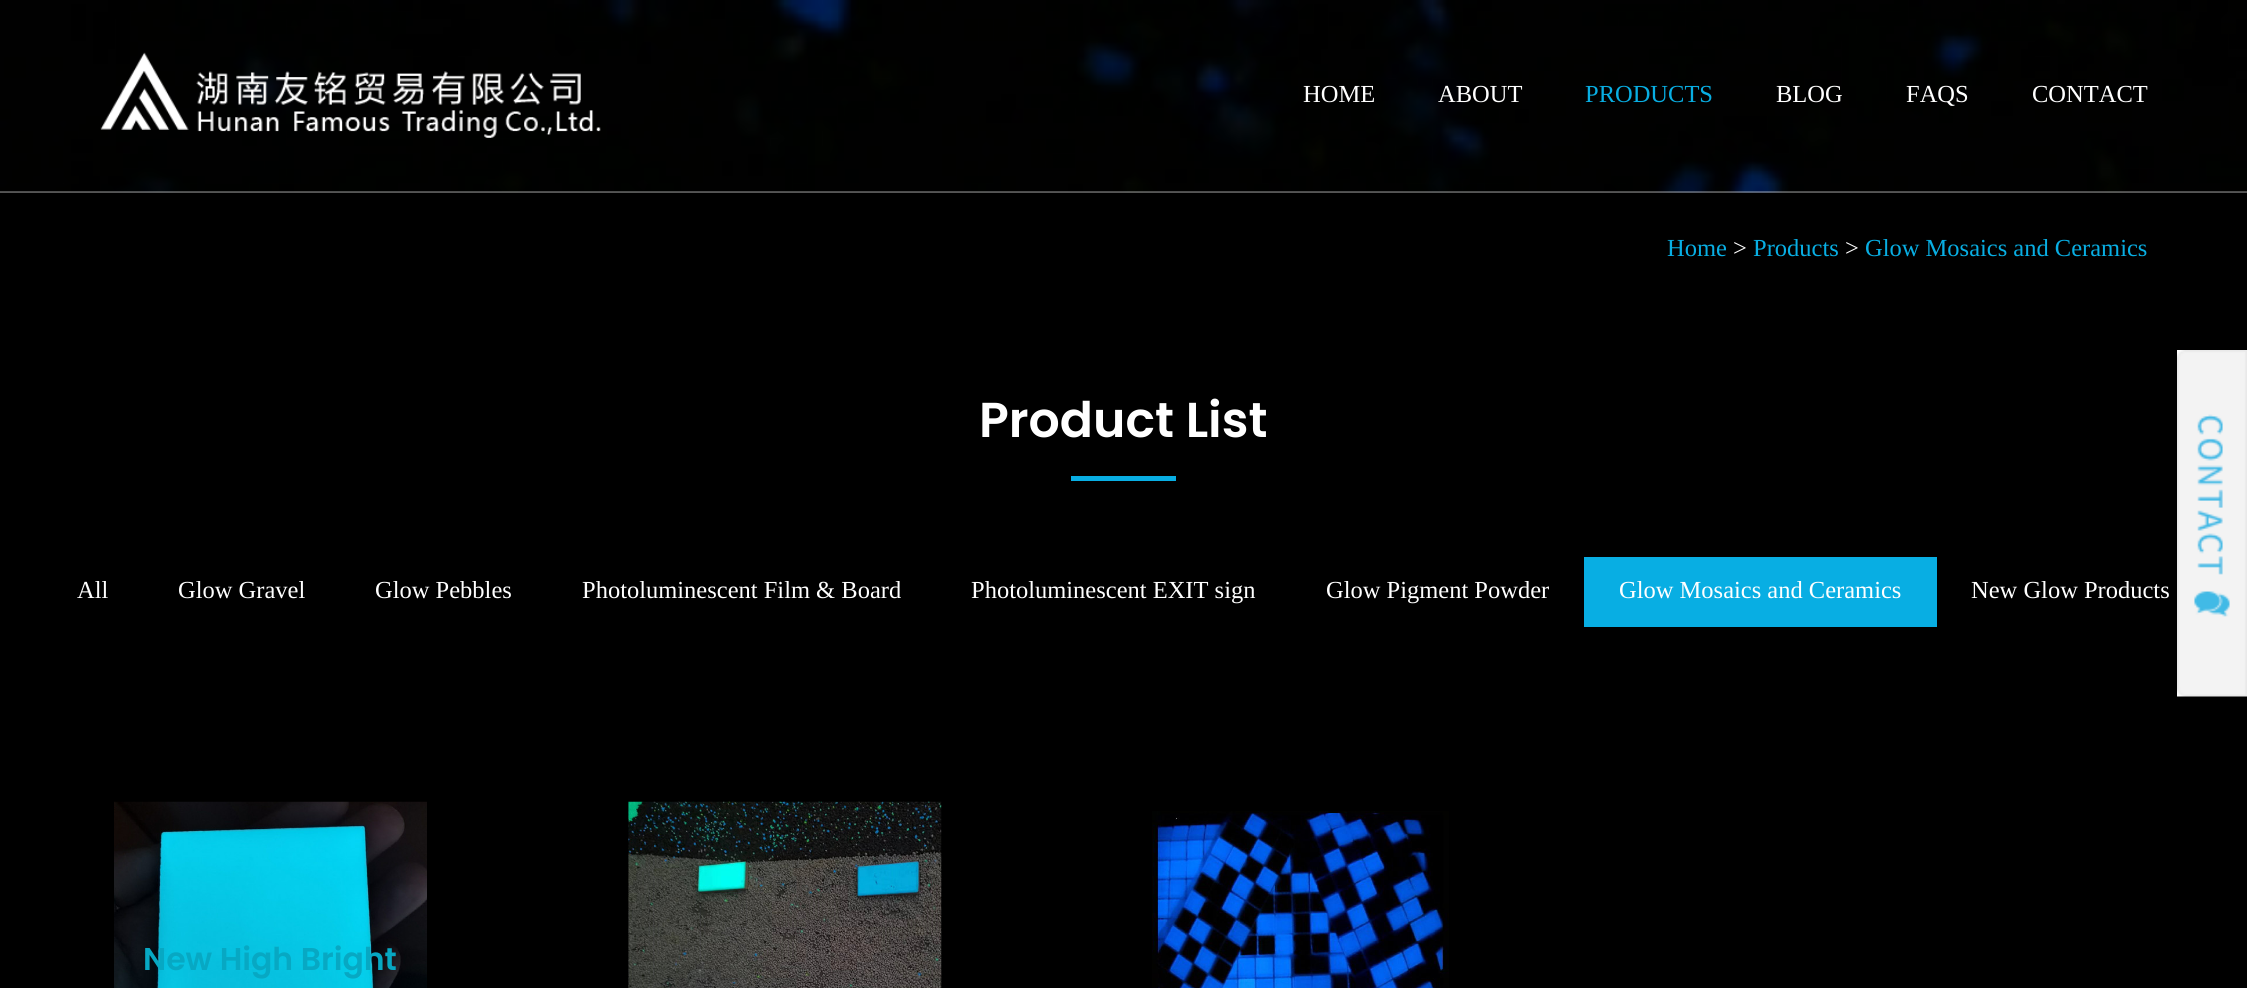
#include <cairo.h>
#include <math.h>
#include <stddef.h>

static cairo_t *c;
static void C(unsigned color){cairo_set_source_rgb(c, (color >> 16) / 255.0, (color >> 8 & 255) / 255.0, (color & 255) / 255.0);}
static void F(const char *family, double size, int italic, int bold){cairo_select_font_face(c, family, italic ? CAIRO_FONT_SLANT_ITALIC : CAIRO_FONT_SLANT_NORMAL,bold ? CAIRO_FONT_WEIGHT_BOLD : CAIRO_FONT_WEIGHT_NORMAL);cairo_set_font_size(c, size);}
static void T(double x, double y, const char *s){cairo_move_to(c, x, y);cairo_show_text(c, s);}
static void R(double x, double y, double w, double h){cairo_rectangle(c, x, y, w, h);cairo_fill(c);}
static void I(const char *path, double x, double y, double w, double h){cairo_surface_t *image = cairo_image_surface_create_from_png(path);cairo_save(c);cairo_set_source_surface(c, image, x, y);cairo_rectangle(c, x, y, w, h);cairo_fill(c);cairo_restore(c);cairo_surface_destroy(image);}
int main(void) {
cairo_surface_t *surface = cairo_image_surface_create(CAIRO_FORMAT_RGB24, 2247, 988);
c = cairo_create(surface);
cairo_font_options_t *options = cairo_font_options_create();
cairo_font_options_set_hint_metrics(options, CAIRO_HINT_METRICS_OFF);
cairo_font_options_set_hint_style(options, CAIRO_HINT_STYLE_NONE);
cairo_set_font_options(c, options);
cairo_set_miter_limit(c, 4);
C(0x1a1a1a);
cairo_paint(c);
I("1.png",0,0,2247,193);
cairo_set_source_rgba(c,1,1,1,0.3);
R(0,191,2247,2);
I("2.png",100,52,501,86);
F("Liberation Serif",24.5,0,0);
C(0xffffff);
T(1303,102,"HOME");
T(1438,102,"ABOUT");
C(0x08aee3);
T(1585,102,"PRODUCTS");
C(0xffffff);
T(1776,102,"BLOG");
T(1906,102,"FAQS");
T(2032,102,"CONTACT");
C(0x000000);
R(0,193,2247,795);
C(0x08aee3);
T(1667,256,"Home");
C(0xffffff);
T(1733,256,">");
C(0x08aee3);
T(1753,256,"Products");
C(0xffffff);
T(1845,256,">");
C(0x08aee3);
T(1865,256,"Glow Mosaics and Ceramics");
F("Poppins SemiBold",49,0,0);
C(0xffffff);
T(979,437,"Product List");
C(0x08aee3);
R(1071,476,105,5);
F("Liberation Serif",24.5,0,0);
C(0xffffff);
T(77,598,"All");
T(178,598,"Glow Gravel");
T(375,598,"Glow Pebbles");
T(582,598,"Photoluminescent Film & Board");
T(971,598,"Photoluminescent EXIT sign");
T(1326,598,"Glow Pigment Powder");
C(0x08aee3);
R(1584,557,353,70);
C(0xffffff);
T(1619,598,"Glow Mosaics and Ceramics");
T(1971,598,"New Glow Products");
I("3.png",114,801,313,187);
F("Poppins SemiBold",31.5,0,0);
C(0x07a8c3);
T(143,970,"New High Bright");
I("4.png",628,801,314,187);
I("5.png",1152,811,297,177);
I("6.png",2177,350,70,347);
cairo_surface_write_to_png(surface, "o.png");
cairo_font_options_destroy(options);
cairo_destroy(c);
cairo_surface_destroy(surface);
return 0;
}
